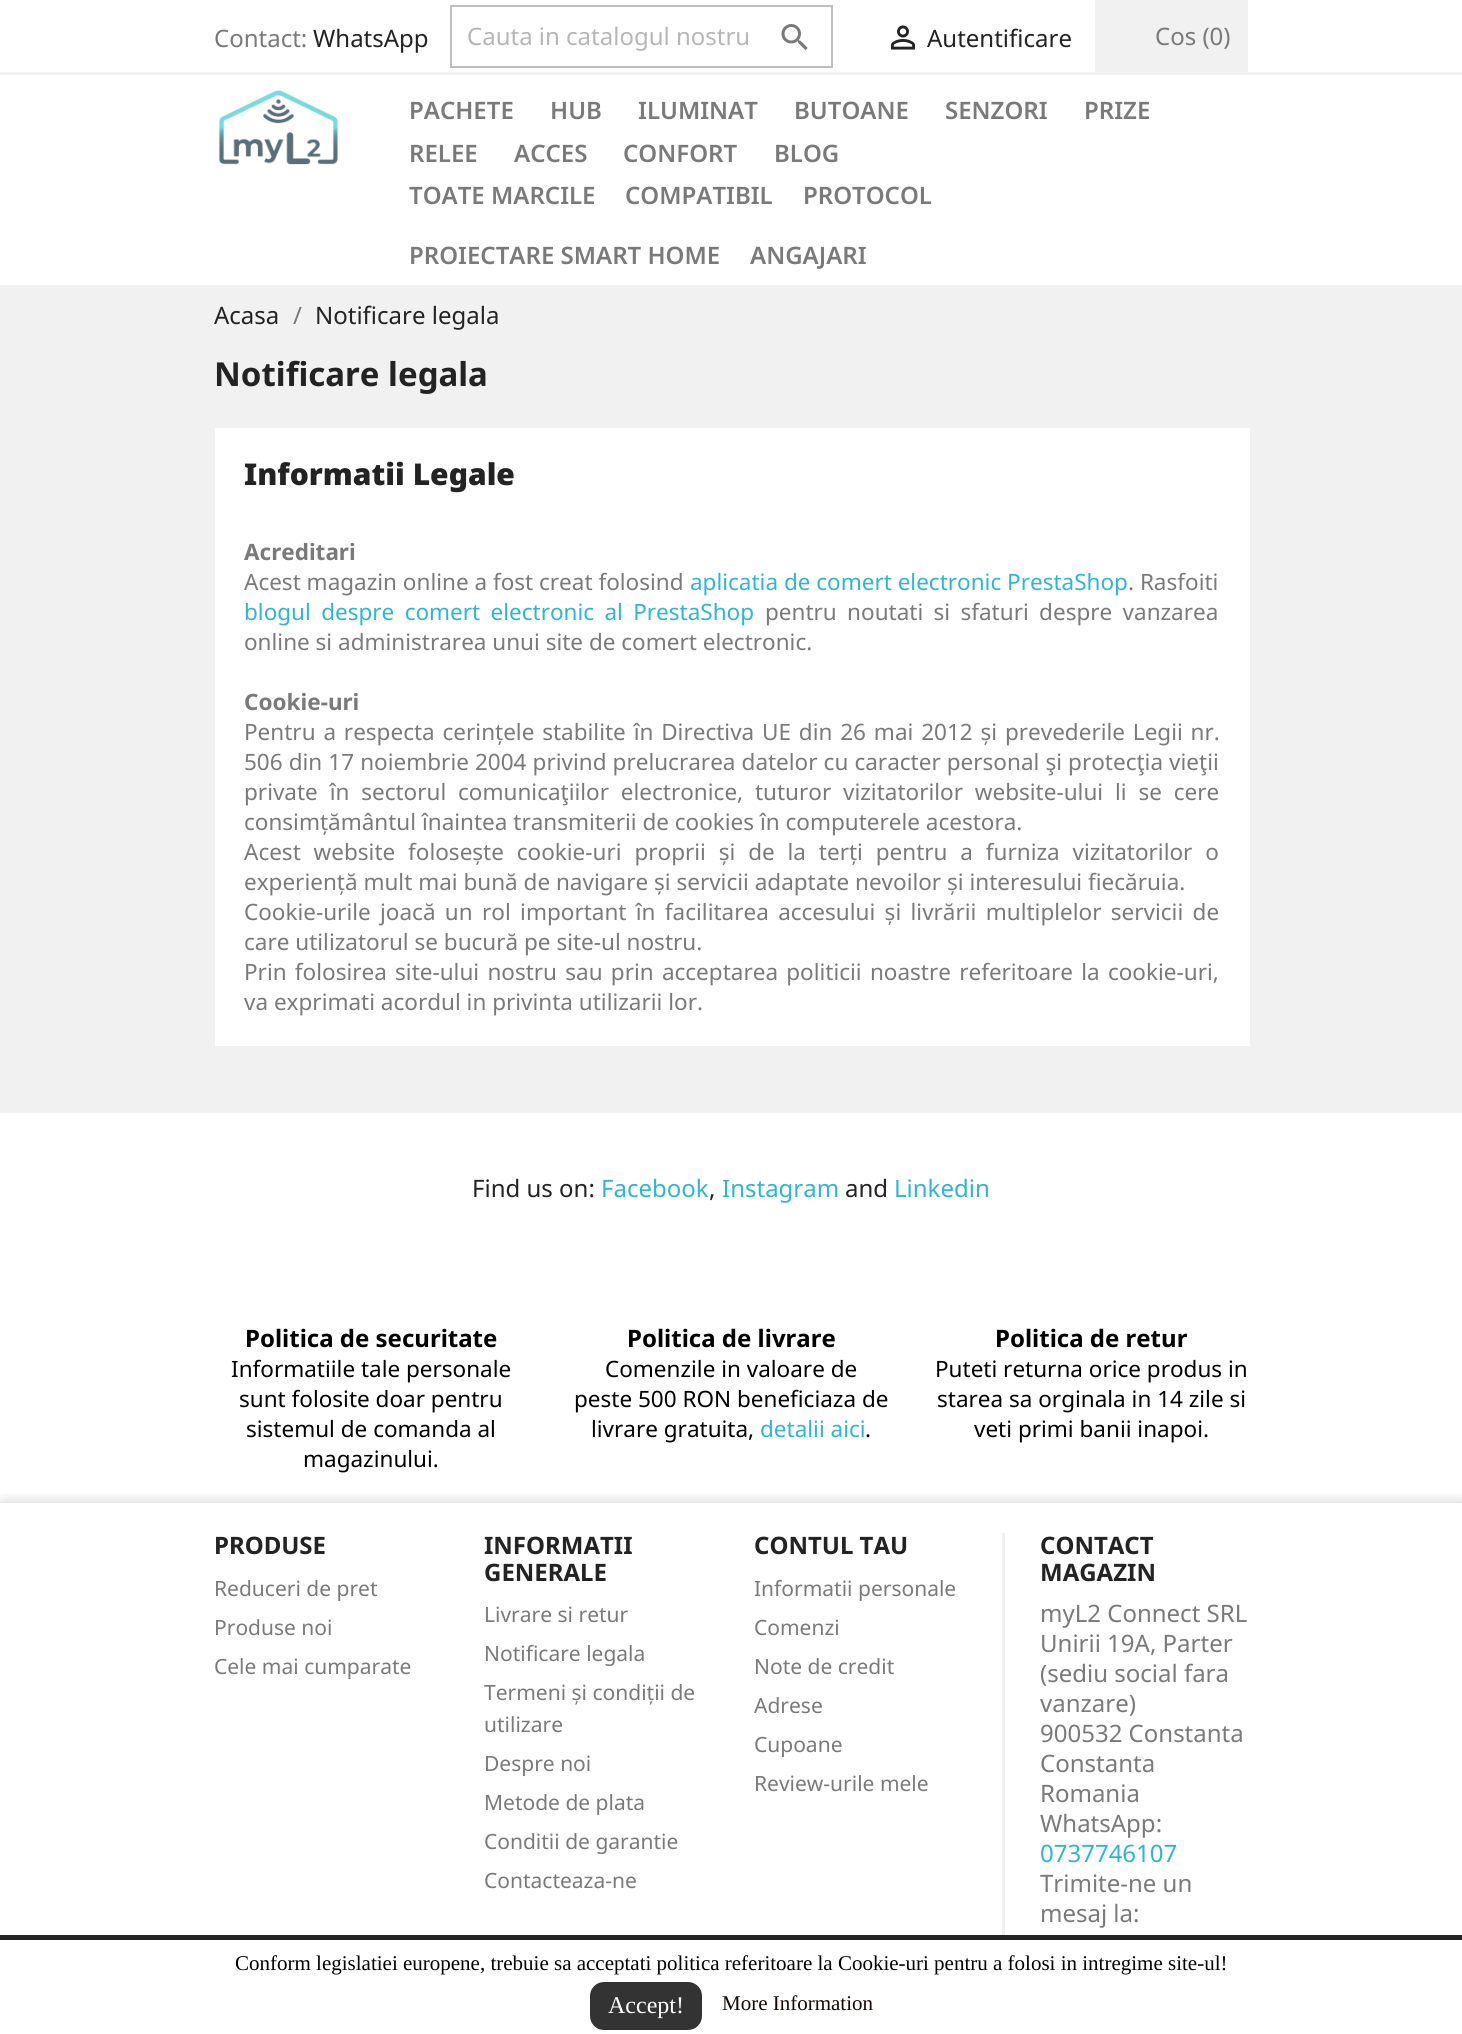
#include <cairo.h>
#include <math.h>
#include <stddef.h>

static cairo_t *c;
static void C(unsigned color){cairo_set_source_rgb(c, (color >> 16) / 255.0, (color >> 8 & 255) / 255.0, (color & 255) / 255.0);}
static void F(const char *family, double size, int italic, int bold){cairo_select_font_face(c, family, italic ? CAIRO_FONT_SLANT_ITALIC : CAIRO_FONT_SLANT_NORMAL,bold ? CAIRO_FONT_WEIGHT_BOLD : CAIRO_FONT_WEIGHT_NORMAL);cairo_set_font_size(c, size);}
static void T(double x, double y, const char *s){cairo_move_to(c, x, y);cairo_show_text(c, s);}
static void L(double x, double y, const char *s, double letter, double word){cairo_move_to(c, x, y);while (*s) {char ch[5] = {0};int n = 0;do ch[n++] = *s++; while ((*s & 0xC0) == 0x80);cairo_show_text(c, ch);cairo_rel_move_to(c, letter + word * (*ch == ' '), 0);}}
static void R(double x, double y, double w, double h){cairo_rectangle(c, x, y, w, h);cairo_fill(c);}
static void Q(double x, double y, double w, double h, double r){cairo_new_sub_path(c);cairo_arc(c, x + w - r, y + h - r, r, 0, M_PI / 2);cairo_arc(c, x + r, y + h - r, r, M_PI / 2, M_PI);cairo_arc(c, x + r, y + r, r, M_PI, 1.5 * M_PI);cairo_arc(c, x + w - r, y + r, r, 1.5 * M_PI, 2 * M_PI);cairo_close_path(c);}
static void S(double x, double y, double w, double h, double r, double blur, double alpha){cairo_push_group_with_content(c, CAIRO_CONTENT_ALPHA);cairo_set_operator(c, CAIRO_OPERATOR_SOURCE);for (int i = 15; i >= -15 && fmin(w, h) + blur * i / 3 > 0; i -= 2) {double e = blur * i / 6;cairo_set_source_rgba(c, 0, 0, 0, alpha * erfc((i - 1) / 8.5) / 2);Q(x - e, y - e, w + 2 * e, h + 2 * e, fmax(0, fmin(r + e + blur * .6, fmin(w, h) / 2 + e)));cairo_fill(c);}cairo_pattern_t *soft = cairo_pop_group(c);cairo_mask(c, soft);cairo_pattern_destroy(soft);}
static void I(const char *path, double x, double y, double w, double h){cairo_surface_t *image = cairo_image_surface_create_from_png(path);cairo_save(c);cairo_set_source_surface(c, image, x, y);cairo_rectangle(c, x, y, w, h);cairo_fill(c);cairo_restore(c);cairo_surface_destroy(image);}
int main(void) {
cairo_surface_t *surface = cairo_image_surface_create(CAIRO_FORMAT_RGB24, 1462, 2034);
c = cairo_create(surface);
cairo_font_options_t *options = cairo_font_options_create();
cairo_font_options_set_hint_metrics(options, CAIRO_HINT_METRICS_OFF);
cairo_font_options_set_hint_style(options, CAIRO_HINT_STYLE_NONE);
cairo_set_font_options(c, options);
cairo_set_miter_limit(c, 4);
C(0xffffff);
cairo_paint(c);
C(0xf1f1f1);
R(0,72,1462,3);
F("Noto Sans",24,0,0);
C(0x7a7a7a);
T(214,47,"Contact:");
C(0x232323);
T(313,47,"WhatsApp");
cairo_rectangle(c,451,6,381,61);
C(0xbfbfbf);
cairo_stroke(c);
C(0xb7b7b7);
T(467,45,"Cauta in catalogul nostru");
I("1.png",781,24,27,27);
I("2.png",890,25,26,25);
C(0x232323);
T(927,47,"Autentificare");
C(0xf1f1f1);
R(1095,0,153,72);
C(0x7a7a7a);
T(1155,45,"Cos (0)");
I("3.png",218,90,120,75);
F("Noto Sans SemiBold",24,0,0);
T(409,119,"PACHETE");
T(550,119,"HUB");
T(638,119,"ILUMINAT");
T(794,119,"BUTOANE");
T(945,119,"SENZORI");
T(1084,119,"PRIZE");
T(409,162,"RELEE");
T(514,162,"ACCES");
T(623,162,"CONFORT");
T(774,162,"BLOG");
T(409,204,"TOATE MARCILE");
T(625,204,"COMPATIBIL");
T(803,204,"PROTOCOL");
T(409,264,"PROIECTARE SMART HOME");
T(750,264,"ANGAJARI");
C(0xf1f1f1);
R(0,285,1462,828);
F("Noto Sans",24,0,0);
C(0x232323);
T(214,324,"Acasa");
C(0x7a7a7a);
T(293,324,"/");
C(0x232323);
T(315,324,"Notificare legala");
F("Noto Sans",33,0,1);
T(214,386,"Notificare legala");
C(0xffffff);
R(215,428,1035,618);
F("Noto Sans Black",30,0,0);
C(0x232323);
T(244,485,"Informatii Legale");
F("Noto Sans",22.5,0,1);
C(0x7a7a7a);
T(244,560,"Acreditari");
F("Noto Sans",22.5,0,0);
T(244,590,"Acest magazin online a fost creat folosind");
C(0x2fb5d2);
T(690,590,"aplicatia de comert electronic PrestaShop");
C(0x7a7a7a);
T(1128,590,". Rasfoiti");
C(0x2fb5d2);
L(244,620,"blogul despre comert electronic al PrestaShop",0,4.5);
C(0x7a7a7a);
L(765,620,"pentru noutati si sfaturi despre vanzarea",0,4.5);
T(244,650,"online si administrarea unui site de comert electronic.");
F("Noto Sans",22.5,0,1);
T(244,710,"Cookie-uri");
F("Noto Sans",22.5,0,0);
L(244,740,"Pentru a respecta cerințele stabilite în Directiva UE din 26 mai 2012 și prevederile Legii nr.",0,2);
L(244,770,"506 din 17 noiembrie 2004 privind prelucrarea datelor cu caracter personal şi protecţia vieţii",0,.25);
L(244,800,"private în sectorul comunicaţiilor electronice, tuturor vizitatorilor website-ului li se cere",0,6);
T(244,830,"consimțământul înaintea transmiterii de cookies în computerele acestora.");
L(244,860,"Acest website folosește cookie-uri proprii și de la terți pentru a furniza vizitatorilor o",0,7);
T(244,890,"experiență mult mai bună de navigare și servicii adaptate nevoilor și interesului fiecăruia.");
L(244,920,"Cookie-urile joacă un rol important în facilitarea accesului și livrării multiplelor servicii de",0,3.5);
T(244,950,"care utilizatorul se bucură pe site-ul nostru.");
L(244,980,"Prin folosirea site-ului nostru sau prin acceptarea politicii noastre referitoare la cookie-uri,",0,2.4);
T(244,1010,"va exprimati acordul in privinta utilizarii lor.");
F("Noto Sans",24,0,0);
C(0x232323);
T(472,1197,"Find us on:");
C(0x2fb5d2);
T(601,1197,"Facebook");
C(0x232323);
T(709,1197,",");
C(0x2fb5d2);
T(722,1197,"Instagram");
C(0x232323);
T(845,1197,"and");
C(0x2fb5d2);
T(894,1197,"Linkedin");
F("Noto Sans",24,0,1);
C(0x000000);
T(245,1347,"Politica de securitate");
F("Noto Sans",22.5,0,0);
T(231,1377,"Informatiile tale personale");
T(239,1407,"sunt folosite doar pentru");
T(246,1437,"sistemul de comanda al");
T(303,1467,"magazinului.");
F("Noto Sans",24,0,1);
T(627,1347,"Politica de livrare");
F("Noto Sans",22.5,0,0);
T(605,1377,"Comenzile in valoare de");
T(574,1407,"peste 500 RON beneficiaza de");
T(591,1437,"livrare gratuita,");
C(0x2fb5d2);
T(760,1437,"detalii aici");
C(0x000000);
T(865,1437,".");
F("Noto Sans",24,0,1);
T(995,1347,"Politica de retur");
F("Noto Sans",22.5,0,0);
T(935,1377,"Puteti returna orice produs in");
T(937,1407,"starea sa orginala in 14 zile si");
T(974,1437,"veti primi banii inapoi.");
cairo_save(c);
cairo_rectangle(c,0,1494,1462,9);
cairo_clip(c);
C(0x000000);
S(3,1506,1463,485,0,8,.3);
cairo_restore(c);
F("Noto Sans",24,0,1);
C(0x232323);
T(214,1554,"PRODUSE");
F("Noto Sans",21,0,0);
C(0x7a7a7a);
T(214,1596,"Reduceri de pret");
T(214,1635,"Produse noi");
T(214,1674,"Cele mai cumparate");
F("Noto Sans",24,0,1);
C(0x232323);
T(484,1554,"INFORMATII");
T(484,1581,"GENERALE");
F("Noto Sans",21,0,0);
C(0x7a7a7a);
T(484,1622,"Livrare si retur");
T(484,1661,"Notificare legala");
T(484,1700,"Termeni și condiții de");
T(484,1732,"utilizare");
T(484,1771,"Despre noi");
T(484,1810,"Metode de plata");
T(484,1849,"Conditii de garantie");
T(484,1888,"Contacteaza-ne");
F("Noto Sans",24,0,1);
C(0x232323);
T(754,1554,"CONTUL TAU");
F("Noto Sans",21,0,0);
C(0x7a7a7a);
T(754,1596,"Informatii personale");
T(754,1635,"Comenzi");
T(754,1674,"Note de credit");
T(754,1713,"Adrese");
T(754,1752,"Cupoane");
T(754,1791,"Review-urile mele");
C(0xf1f1f1);
R(1002,1533,3,402);
F("Noto Sans",24,0,1);
C(0x232323);
T(1040,1554,"CONTACT");
T(1040,1581,"MAGAZIN");
F("Noto Sans",24,0,0);
C(0x7a7a7a);
T(1040,1622,"myL2 Connect SRL");
T(1040,1652,"Unirii 19A, Parter");
T(1040,1682,"(sediu social fara");
T(1040,1712,"vanzare)");
T(1040,1742,"900532 Constanta");
T(1040,1772,"Constanta");
T(1040,1802,"Romania");
T(1040,1832,"WhatsApp:");
C(0x2fb5d2);
T(1040,1862,"0737746107");
C(0x7a7a7a);
T(1040,1892,"Trimite-ne un");
T(1040,1922,"mesaj la:");
C(0xffffff);
R(0,1987,1462,19);
C(0x232323);
R(0,1935,1462,5);
F("Liberation Serif",21,0,0);
C(0x000000);
T(235,1970,"Conform legislatiei europene, trebuie sa acceptati politica referitoare la Cookie-uri pentru a folosi in intregime site-ul!");
C(0x333333);
Q(590,1982,112,48,14);
cairo_fill(c);
F("Liberation Serif",24,0,0);
C(0xffffff);
T(608,2013,"Accept!");
F("Liberation Serif",21,0,0);
C(0x140805);
T(722,2010,"More Information");
cairo_surface_write_to_png(surface, "o.png");
cairo_font_options_destroy(options);
cairo_destroy(c);
cairo_surface_destroy(surface);
return 0;
}
